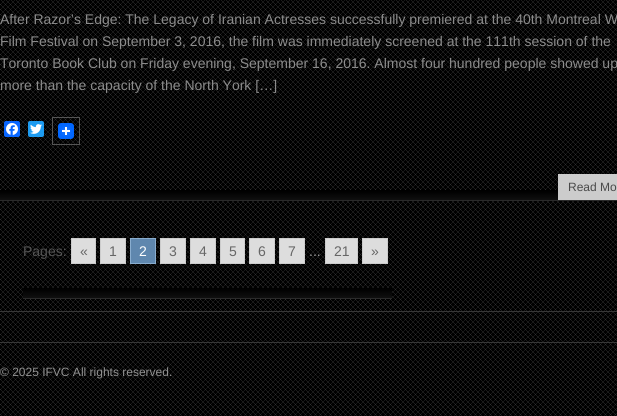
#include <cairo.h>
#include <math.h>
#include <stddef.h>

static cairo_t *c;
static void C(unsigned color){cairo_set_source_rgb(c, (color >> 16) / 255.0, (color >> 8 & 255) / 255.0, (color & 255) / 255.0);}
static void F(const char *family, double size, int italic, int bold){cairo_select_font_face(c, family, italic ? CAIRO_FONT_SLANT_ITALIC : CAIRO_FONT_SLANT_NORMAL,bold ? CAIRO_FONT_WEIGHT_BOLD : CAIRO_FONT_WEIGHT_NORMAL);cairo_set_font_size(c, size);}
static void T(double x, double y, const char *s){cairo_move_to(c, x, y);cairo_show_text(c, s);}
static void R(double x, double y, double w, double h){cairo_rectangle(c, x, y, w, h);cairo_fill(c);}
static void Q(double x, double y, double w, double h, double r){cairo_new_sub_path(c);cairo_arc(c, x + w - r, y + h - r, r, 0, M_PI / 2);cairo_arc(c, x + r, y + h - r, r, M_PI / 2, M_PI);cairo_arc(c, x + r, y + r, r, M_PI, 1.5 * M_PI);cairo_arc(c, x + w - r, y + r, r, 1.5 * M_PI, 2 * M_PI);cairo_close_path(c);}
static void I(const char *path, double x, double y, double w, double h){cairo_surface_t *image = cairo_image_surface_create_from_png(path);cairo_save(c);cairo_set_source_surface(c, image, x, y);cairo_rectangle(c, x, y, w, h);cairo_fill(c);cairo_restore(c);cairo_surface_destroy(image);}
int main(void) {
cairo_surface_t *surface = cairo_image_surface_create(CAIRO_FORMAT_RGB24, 617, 416);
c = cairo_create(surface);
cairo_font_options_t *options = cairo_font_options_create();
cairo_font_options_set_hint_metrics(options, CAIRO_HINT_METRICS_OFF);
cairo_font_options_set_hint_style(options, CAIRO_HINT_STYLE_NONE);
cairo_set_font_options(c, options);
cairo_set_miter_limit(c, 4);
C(0x000000);
cairo_paint(c);
I("1.png",0,0,617,416);
I("2.png",0,190,617,11);
F("Liberation Sans",14,0,0);
C(0x8c8c8c);
T(0,24,"After Razor’s Edge: The Legacy of Iranian Actresses successfully premiered at the 40th Montreal W");
T(0,46,"Film Festival on September 3, 2016, the film was immediately screened at the 111th session of the");
T(0,68,"Toronto Book Club on Friday evening, September 16, 2016. Almost four hundred people showed up");
T(0,90,"more than the capacity of the North York […]");
C(0x0866ff);
Q(4,121,16,16,2);
cairo_fill(c);
I("3.png",6,123,12,12);
C(0x1d9bf0);
Q(28,121,16,16,2);
cairo_fill(c);
I("4.png",30,124,12,10);
cairo_rectangle(c,52.5,117.5,27,27);
C(0x555555);
cairo_set_line_width(c,1);
cairo_stroke(c);
I("5.png",58,123,16,16);
C(0xcccccc);
R(558,174,59,26);
F("Liberation Sans",12,0,0);
C(0x494949);
T(568,191,"Read Mo");
F("Liberation Sans",14,0,0);
C(0x555555);
T(23,256,"Pages:");
C(0xdddddd);
cairo_rectangle(c,71.5,238.5,24,25);
cairo_fill_preserve(c);
C(0xcccccc);
cairo_stroke(c);
C(0x666666);
T(80,256,"«");
C(0xdddddd);
cairo_rectangle(c,100.5,238.5,25,25);
cairo_fill_preserve(c);
C(0xcccccc);
cairo_stroke(c);
C(0x666666);
T(109,256,"1");
C(0x5f87ae);
cairo_rectangle(c,130.5,238.5,25,25);
cairo_fill_preserve(c);
C(0x89adcf);
cairo_stroke(c);
C(0xffffff);
T(139,256,"2");
C(0xdddddd);
cairo_rectangle(c,160.5,238.5,25,25);
cairo_fill_preserve(c);
C(0xcccccc);
cairo_stroke(c);
C(0x666666);
T(169,256,"3");
C(0xdddddd);
cairo_rectangle(c,190.5,238.5,25,25);
cairo_fill_preserve(c);
C(0xcccccc);
cairo_stroke(c);
C(0x666666);
T(199,256,"4");
C(0xdddddd);
cairo_rectangle(c,220.5,238.5,24,25);
cairo_fill_preserve(c);
C(0xcccccc);
cairo_stroke(c);
C(0x666666);
T(229,256,"5");
C(0xdddddd);
cairo_rectangle(c,249.5,238.5,25,25);
cairo_fill_preserve(c);
C(0xcccccc);
cairo_stroke(c);
C(0x666666);
T(258,256,"6");
C(0xdddddd);
cairo_rectangle(c,279.5,238.5,25,25);
cairo_fill_preserve(c);
C(0xcccccc);
cairo_stroke(c);
C(0x666666);
T(288,256,"7");
C(0x999999);
T(309,256,"...");
C(0xdddddd);
cairo_rectangle(c,325.5,238.5,32,25);
cairo_fill_preserve(c);
C(0xcccccc);
cairo_stroke(c);
C(0x666666);
T(334,256,"21");
C(0xdddddd);
cairo_rectangle(c,362.5,238.5,25,25);
cairo_fill_preserve(c);
C(0xcccccc);
cairo_stroke(c);
C(0x666666);
T(371,256,"»");
I("6.png",23,288,48,11);
I("7.png",71,288,29,11);
I("8.png",100,288,30,11);
I("8.png",130,288,30,11);
I("8.png",160,288,30,11);
I("8.png",190,288,30,11);
I("7.png",220,288,29,11);
I("8.png",249,288,30,11);
I("8.png",279,288,30,11);
I("9.png",309,288,16,11);
I("10.png",325,288,37,11);
I("8.png",362,288,30,11);
C(0x373737);
R(0,311,617,1);
R(0,342,617,1);
F("Liberation Sans",12,0,0);
C(0x929292);
T(0,376,"© 2025 IFVC All rights reserved.");
cairo_surface_write_to_png(surface, "o.png");
cairo_font_options_destroy(options);
cairo_destroy(c);
cairo_surface_destroy(surface);
return 0;
}
